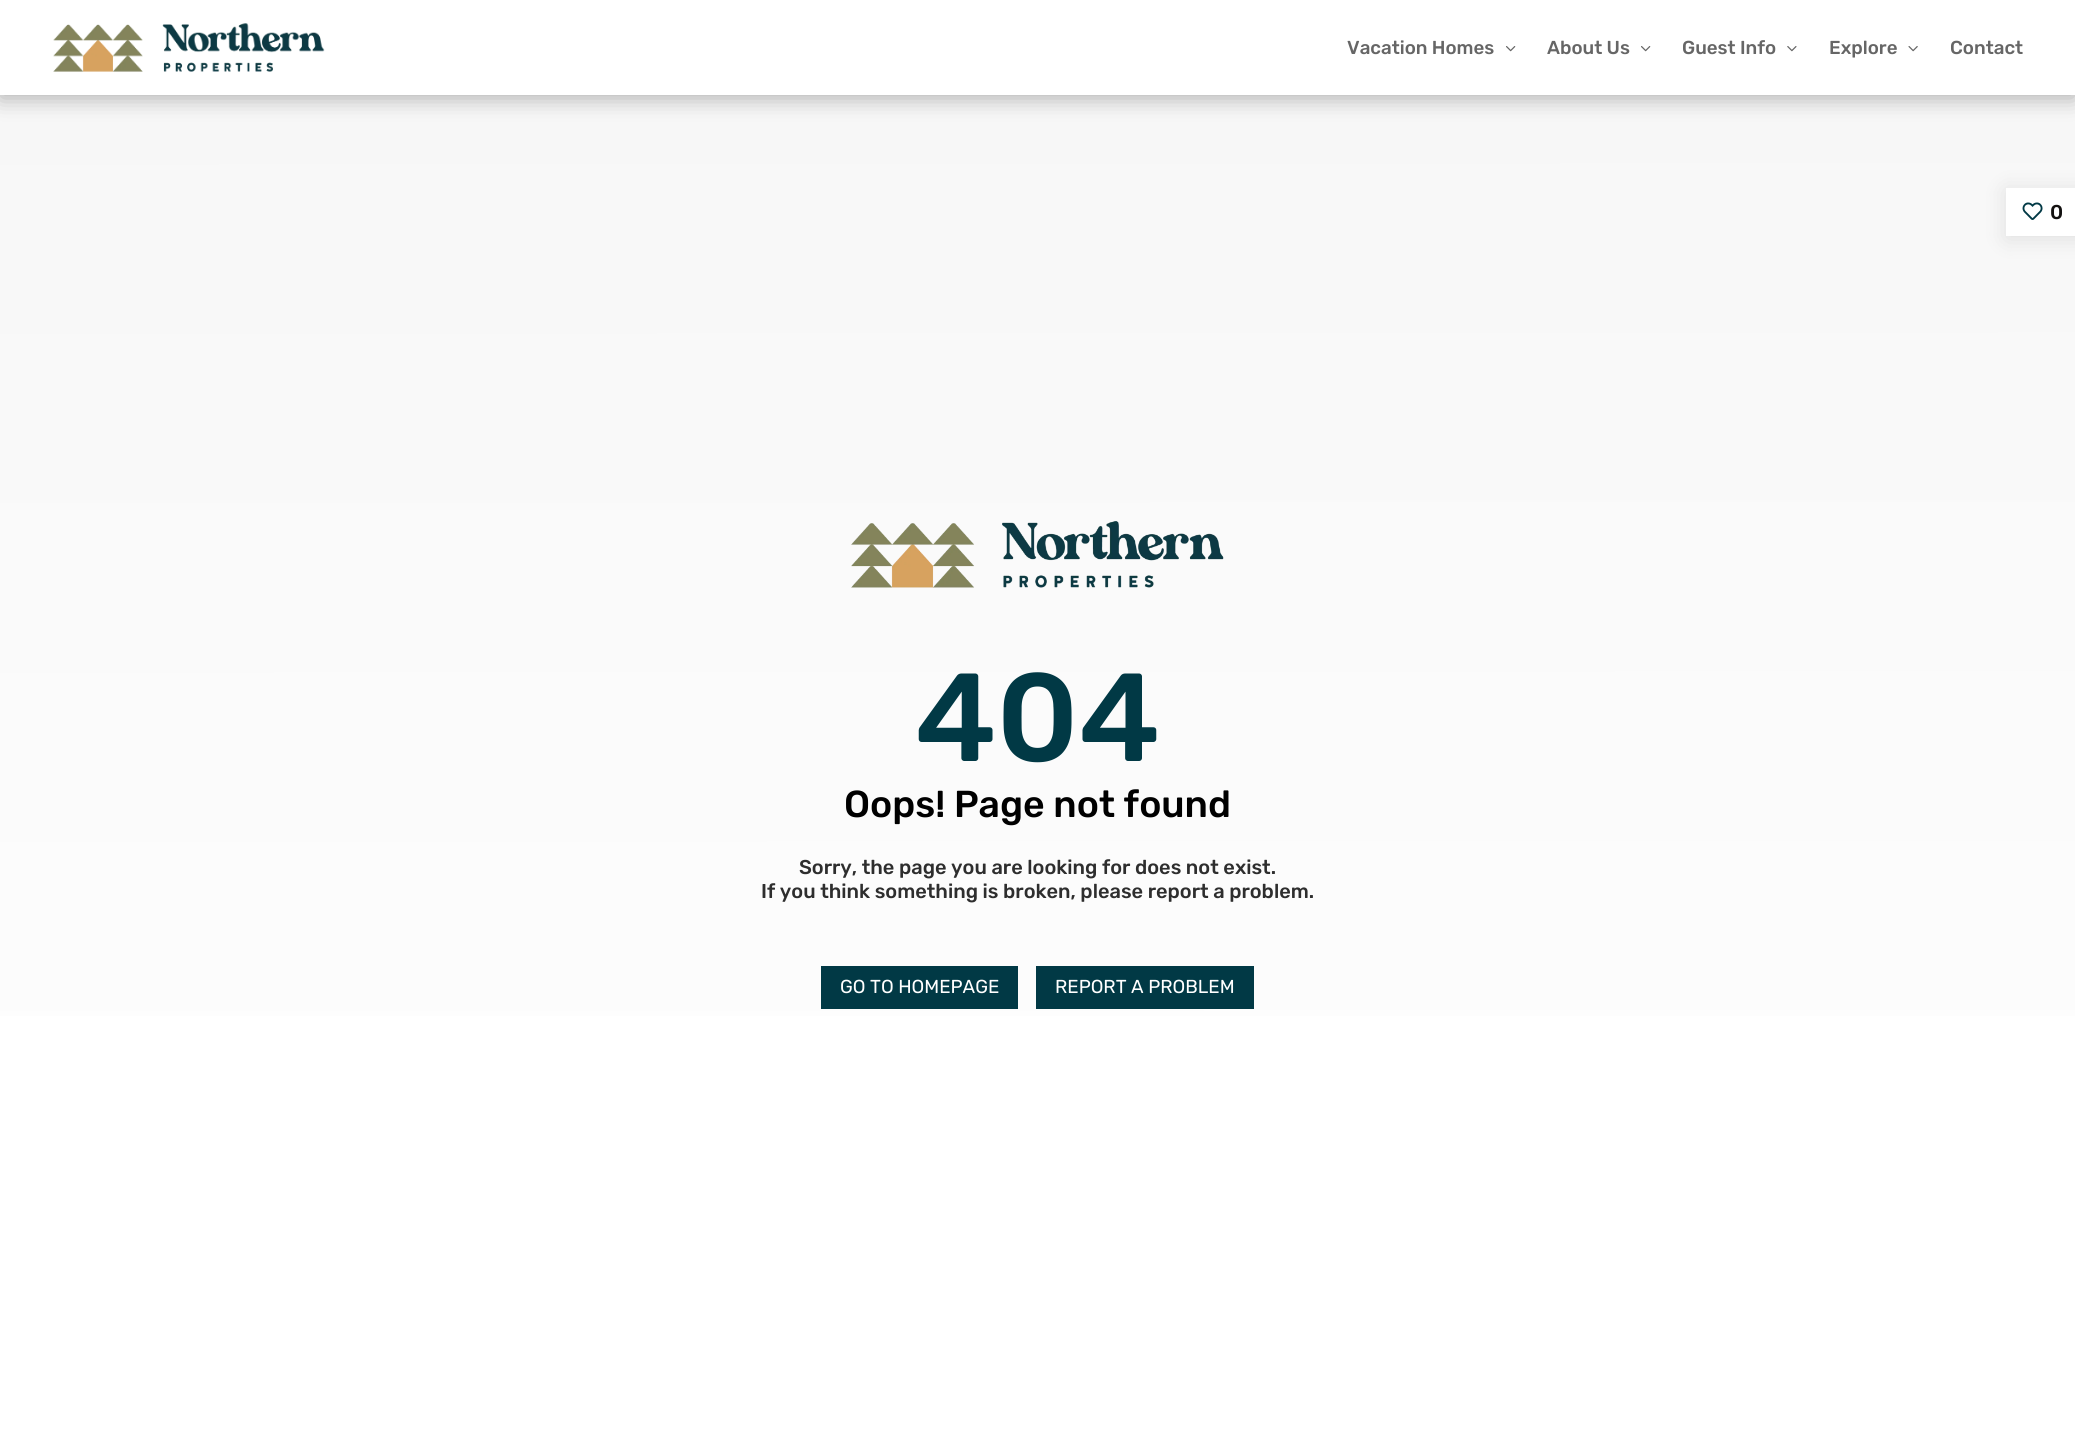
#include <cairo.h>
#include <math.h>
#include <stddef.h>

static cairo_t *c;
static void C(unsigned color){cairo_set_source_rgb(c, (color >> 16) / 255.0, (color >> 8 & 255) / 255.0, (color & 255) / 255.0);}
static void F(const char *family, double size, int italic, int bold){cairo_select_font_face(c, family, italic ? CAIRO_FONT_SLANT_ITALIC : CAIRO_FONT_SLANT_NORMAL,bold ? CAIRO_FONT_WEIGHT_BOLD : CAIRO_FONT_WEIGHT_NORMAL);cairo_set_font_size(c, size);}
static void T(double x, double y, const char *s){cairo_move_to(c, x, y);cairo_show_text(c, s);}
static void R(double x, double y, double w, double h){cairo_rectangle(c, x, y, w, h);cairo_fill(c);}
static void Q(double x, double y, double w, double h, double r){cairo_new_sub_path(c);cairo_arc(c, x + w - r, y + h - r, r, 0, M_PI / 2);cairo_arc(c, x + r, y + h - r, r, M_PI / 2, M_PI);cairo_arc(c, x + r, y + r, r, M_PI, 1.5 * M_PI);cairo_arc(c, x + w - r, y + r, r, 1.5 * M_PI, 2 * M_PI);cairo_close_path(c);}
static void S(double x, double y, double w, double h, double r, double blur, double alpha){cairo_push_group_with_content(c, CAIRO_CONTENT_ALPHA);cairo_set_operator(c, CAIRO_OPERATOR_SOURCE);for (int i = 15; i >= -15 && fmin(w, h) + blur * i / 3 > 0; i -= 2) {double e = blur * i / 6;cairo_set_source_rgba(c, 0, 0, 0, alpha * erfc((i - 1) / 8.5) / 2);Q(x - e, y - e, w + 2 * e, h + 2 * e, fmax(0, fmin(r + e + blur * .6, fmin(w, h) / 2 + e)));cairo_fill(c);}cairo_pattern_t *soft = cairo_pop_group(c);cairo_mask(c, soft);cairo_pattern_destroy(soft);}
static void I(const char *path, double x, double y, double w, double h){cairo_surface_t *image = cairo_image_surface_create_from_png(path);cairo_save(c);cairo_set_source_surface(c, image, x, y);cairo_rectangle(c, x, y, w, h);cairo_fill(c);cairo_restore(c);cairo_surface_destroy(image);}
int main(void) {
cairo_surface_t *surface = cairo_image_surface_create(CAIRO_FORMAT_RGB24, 2075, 1433);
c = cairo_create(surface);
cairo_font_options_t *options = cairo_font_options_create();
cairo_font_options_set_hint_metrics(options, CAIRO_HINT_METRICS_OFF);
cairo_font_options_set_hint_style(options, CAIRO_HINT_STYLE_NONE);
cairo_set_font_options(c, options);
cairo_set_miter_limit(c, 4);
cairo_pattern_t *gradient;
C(0xffffff);
cairo_paint(c);
gradient = cairo_pattern_create_linear(1037,95,1038,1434);
cairo_pattern_add_color_stop_rgba(gradient,0,0.969,0.969,0.969,1);
cairo_pattern_add_color_stop_rgba(gradient,1,1,1,1,1);
cairo_set_source(c,gradient);
cairo_pattern_destroy(gradient);
R(0,95,2075,921);
C(0x000000);
S(0,3,2075,95,0,11,.3);
C(0xffffff);
R(0,0,2075,95);
I("1.png",53,23,272,49);
F("Rubik Medium",18.75,0,0);
C(0x666666);
T(1347,54,"Vacation Homes");
I("2.png",1506,46,10,6);
T(1547,54,"About Us");
I("2.png",1641,46,10,6);
T(1682,54,"Guest Info");
I("3.png",1787,46,10,6);
T(1829,54,"Explore");
I("4.png",1908,46,10,6);
T(1950,54,"Contact");
C(0x000000);
S(2006,190,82,49,0,11,.1);
C(0xffffff);
R(2006,188,69,48);
I("5.png",2022,202,21,18);
F("Rubik Medium",20,0,0);
C(0x131110);
T(2050,219,"0");
I("6.png",851,521,373,67);
F("Rubik Medium",125,0,0);
C(0x013945);
T(915,761,"404");
F("Rubik Medium",37.5,0,0);
C(0x000000);
T(844,817,"Oops! Page not found");
F("Rubik Medium",20,0,0);
C(0x2e2e2e);
T(799,874,"Sorry, the page you are looking for does not exist.");
T(761,898,"If you think something is broken, please report a problem.");
C(0x013945);
R(821,966,197,43);
F("Rubik",18.75,0,0);
C(0xffffff);
T(840,993,"GO TO HOMEPAGE");
C(0x013945);
R(1036,966,218,43);
C(0xffffff);
T(1055,993,"REPORT A PROBLEM");
cairo_surface_write_to_png(surface, "o.png");
cairo_font_options_destroy(options);
cairo_destroy(c);
cairo_surface_destroy(surface);
return 0;
}
